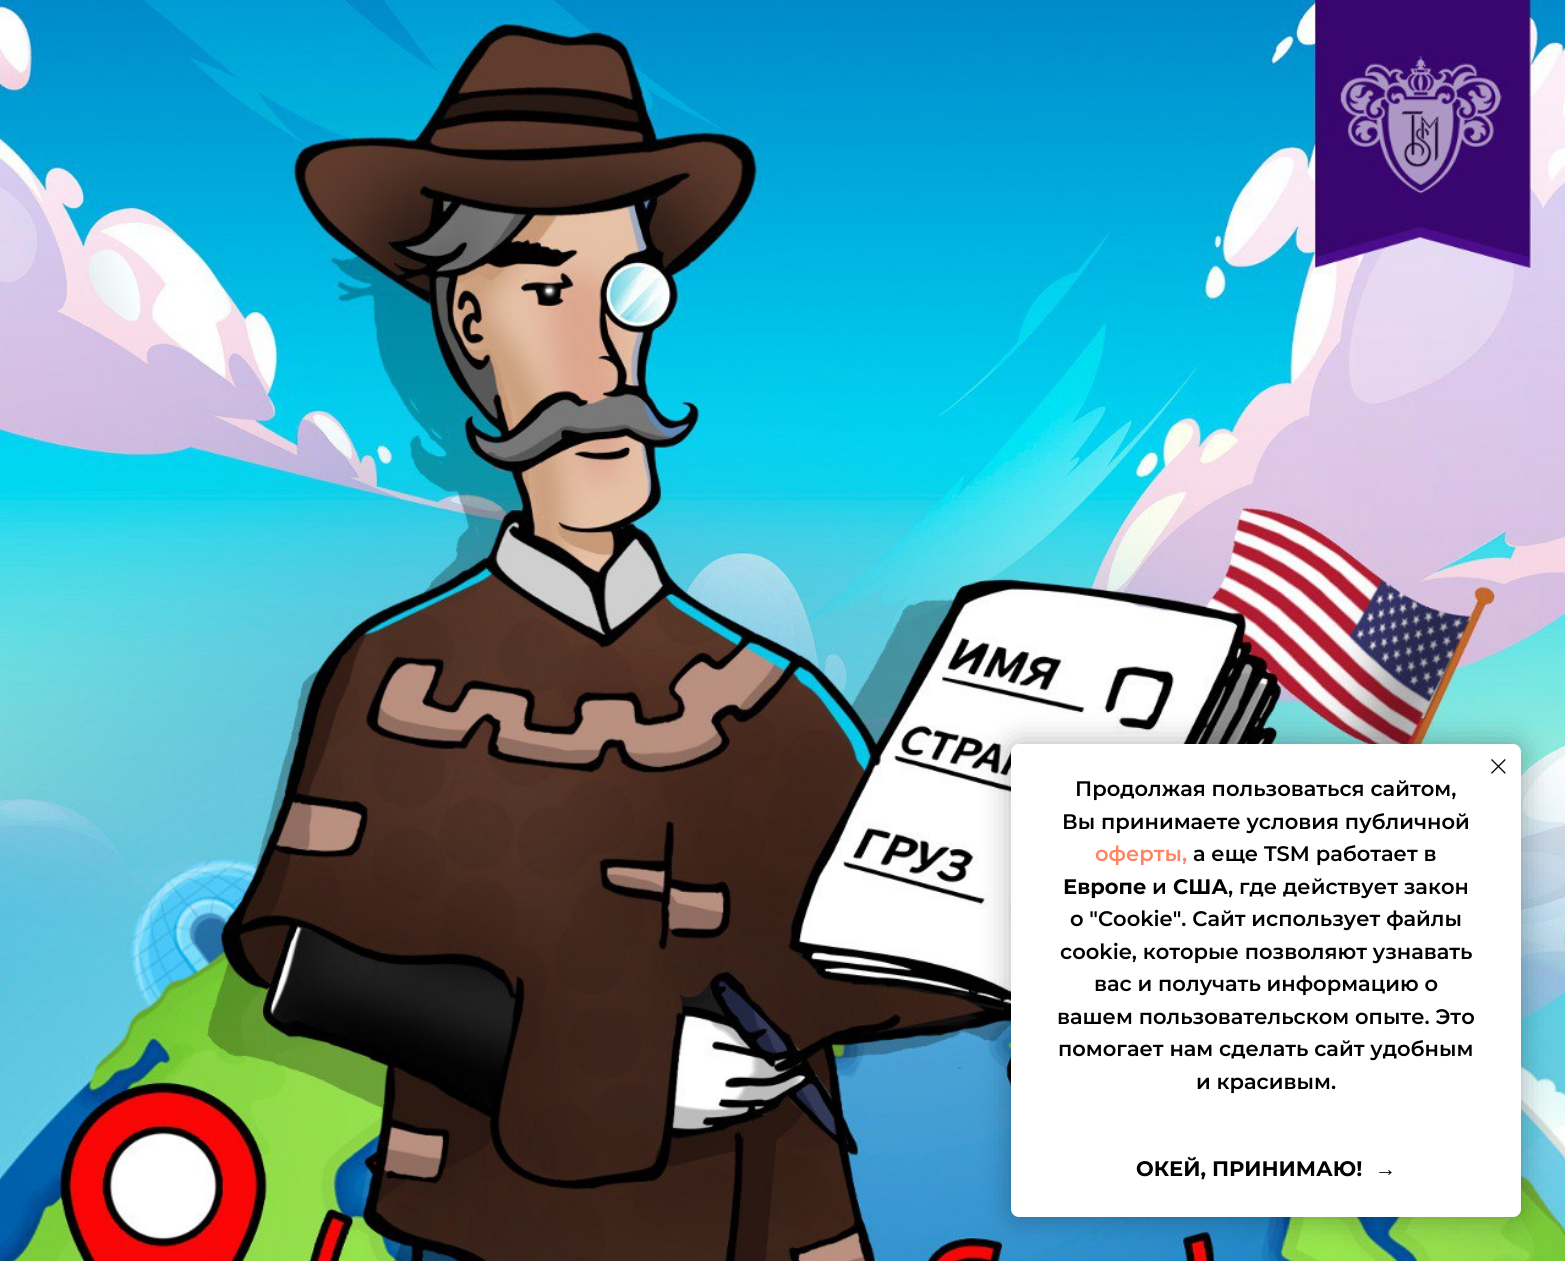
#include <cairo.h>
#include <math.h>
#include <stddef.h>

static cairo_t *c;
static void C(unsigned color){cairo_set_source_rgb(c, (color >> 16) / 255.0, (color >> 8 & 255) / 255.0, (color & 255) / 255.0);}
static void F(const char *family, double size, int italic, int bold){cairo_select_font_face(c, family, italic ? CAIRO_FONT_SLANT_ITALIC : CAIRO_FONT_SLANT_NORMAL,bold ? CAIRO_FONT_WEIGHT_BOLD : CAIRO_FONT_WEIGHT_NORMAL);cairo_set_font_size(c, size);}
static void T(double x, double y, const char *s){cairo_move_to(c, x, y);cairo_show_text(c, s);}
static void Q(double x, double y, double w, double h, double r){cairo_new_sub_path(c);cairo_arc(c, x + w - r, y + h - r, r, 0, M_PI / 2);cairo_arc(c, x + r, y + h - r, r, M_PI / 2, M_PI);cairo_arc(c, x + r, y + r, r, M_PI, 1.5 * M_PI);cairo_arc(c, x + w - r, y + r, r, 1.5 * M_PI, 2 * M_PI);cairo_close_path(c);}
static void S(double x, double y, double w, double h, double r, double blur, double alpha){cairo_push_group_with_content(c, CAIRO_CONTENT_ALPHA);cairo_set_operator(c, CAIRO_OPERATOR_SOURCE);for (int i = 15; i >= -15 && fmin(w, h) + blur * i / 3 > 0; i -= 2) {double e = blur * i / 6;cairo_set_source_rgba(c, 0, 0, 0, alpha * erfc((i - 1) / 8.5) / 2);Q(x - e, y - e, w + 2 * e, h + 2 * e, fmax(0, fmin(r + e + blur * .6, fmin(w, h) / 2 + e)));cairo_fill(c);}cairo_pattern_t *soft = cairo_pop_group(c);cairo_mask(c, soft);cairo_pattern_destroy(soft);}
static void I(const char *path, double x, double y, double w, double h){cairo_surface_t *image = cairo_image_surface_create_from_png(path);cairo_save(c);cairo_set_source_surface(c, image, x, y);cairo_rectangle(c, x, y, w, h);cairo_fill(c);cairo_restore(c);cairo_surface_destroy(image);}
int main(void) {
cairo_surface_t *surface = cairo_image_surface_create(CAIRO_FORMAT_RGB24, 1565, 1261);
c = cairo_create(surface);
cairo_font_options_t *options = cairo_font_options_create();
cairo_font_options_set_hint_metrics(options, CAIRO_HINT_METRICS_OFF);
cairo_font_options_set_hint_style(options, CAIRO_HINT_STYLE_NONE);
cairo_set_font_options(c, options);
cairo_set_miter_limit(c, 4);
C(0xffffff);
cairo_paint(c);
I("1.png",0,0,1565,1261);
C(0x000000);
S(1011,744,510,473,8,15,.3);
C(0xffffff);
Q(1011,744,510,473,8);
cairo_fill(c);
I("2.png",1491,759,15,15);
F("Montserrat SemiBold",21,0,0);
C(0x000000);
T(1075,796,"Продолжая пользоваться сайтом,");
T(1062,829,"Вы принимаете условия публичной");
C(0xff8562);
T(1095,861,"оферты,");
C(0x000000);
T(1193,861,"а еще TSM работает в");
F("Montserrat",21,0,1);
T(1063,894,"Европе");
F("Montserrat SemiBold",21,0,0);
T(1152,894,"и");
F("Montserrat",21,0,1);
T(1173,894,"США");
F("Montserrat SemiBold",21,0,0);
T(1228,894,", где действует закон");
T(1070,926,"о \"Cookie\". Сайт использует файлы");
T(1060,959,"cookie, которые позволяют узнавать");
T(1094,991,"вас и получать информацию о");
T(1057,1024,"вашем пользовательском опыте. Это");
T(1058,1056,"помогает нам сделать сайт удобным");
T(1196,1089,"и красивым.");
F("Montserrat",21,0,1);
T(1136,1176,"ОКЕЙ, ПРИНИМАЮ!");
F("Liberation Sans",21,0,1);
T(1375,1176,"→");
cairo_surface_write_to_png(surface, "o.png");
cairo_font_options_destroy(options);
cairo_destroy(c);
cairo_surface_destroy(surface);
return 0;
}
